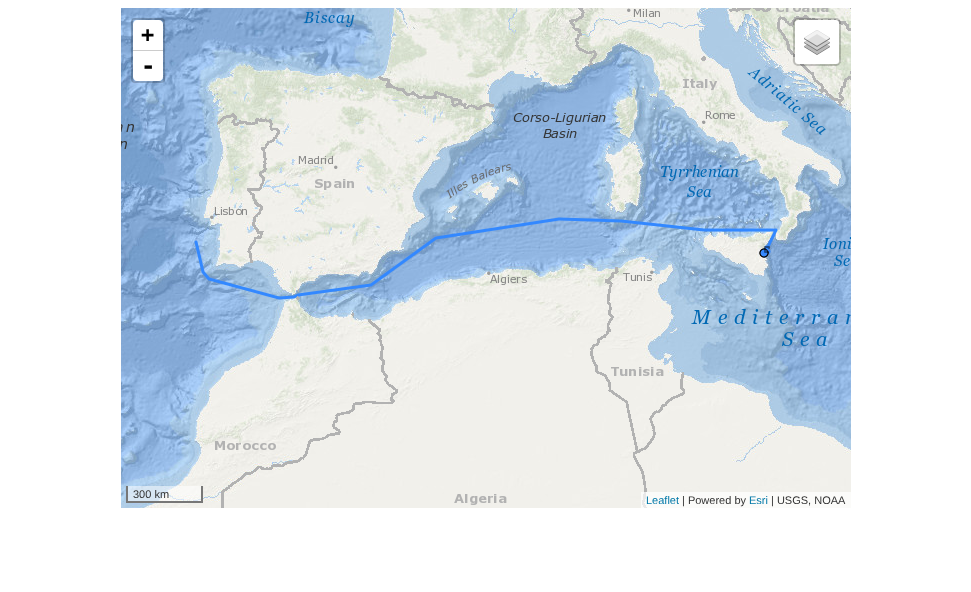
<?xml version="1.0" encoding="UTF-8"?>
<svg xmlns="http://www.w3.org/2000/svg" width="971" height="592">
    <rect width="100%" height="100%" fill="#FFFFFF"/>
    <image x="121" y="8" width="43" height="142" href="img_01.png"/>
    <image x="164" y="8" width="256" height="142" href="img_02.png"/>
    <image x="420" y="8" width="256" height="142" href="img_03.png"/>
    <image x="676" y="8" width="175" height="142" href="img_04.png"/>
    <image x="121" y="150" width="43" height="256" href="img_05.png"/>
    <image x="164" y="150" width="256" height="256" href="img_06.png"/>
    <image x="420" y="150" width="256" height="256" href="img_07.png"/>
    <image x="676" y="150" width="175" height="256" href="img_08.png"/>
    <image x="121" y="406" width="43" height="102" href="img_09.png"/>
    <image x="164" y="406" width="256" height="102" href="img_10.png"/>
    <image x="420" y="406" width="256" height="102" href="img_11.png"/>
    <image x="676" y="406" width="175" height="102" href="img_12.png"/>
    <image x="121" y="124" width="13" height="25" href="img_13.png"/>
    <image x="217" y="11" width="203" height="139" href="img_14.png"/>
    <image x="420" y="8" width="240" height="130" href="img_15.png"/>
    <image x="683" y="8" width="168" height="127" href="img_16.png"/>
    <image x="194" y="217" width="584" height="83" href="img_22.png"/>
    <image x="210" y="150" width="188" height="256" href="img_17.png"/>
    <image x="446" y="164" width="230" height="242" href="img_18.png"/>
    <image x="676" y="165" width="175" height="233" href="img_19.png"/>
    <image x="215" y="406" width="140" height="102" href="img_20.png"/>
    <image x="454" y="406" width="211" height="102" href="img_21.png"/>
    <rect x="132" y="19" width="32" height="63" rx="3" fill="none" stroke="#000000" stroke-opacity="0.2" stroke-width="2"/>
    <path d="M 137 20 H 159 C 161 20 163 22 163 24 V 51 H 133 V 24 C 133 22 135 20 137 20 Z" fill="#FFFFFF"/>
    <rect x="133" y="50" width="30" height="1" fill="#CCCCCC"/>
    <text x="141" y="42" font-family="DejaVu Sans Mono" font-size="22" font-weight="700" fill="#000000">+</text>
    <path d="M 133 51 H 163 V 77 C 163 79 161 81 159 81 H 137 C 135 81 133 79 133 77 Z" fill="#FFFFFF"/>
    <text x="141" y="74" font-family="DejaVu Sans Mono" font-size="24" font-weight="700" fill="#000000">-</text>
    <rect x="795" y="20" width="44" height="44" rx="3" fill="#FFFFFF"/>
    <rect x="794" y="19" width="46" height="46" rx="4" fill="none" stroke="#000000" stroke-opacity="0.2" stroke-width="2"/>
    <image x="804" y="30" width="26" height="25" href="img_23.png"/>
    <rect x="128" y="486" width="73" height="15" fill="#FFFFFF" fill-opacity="0.5"/>
    <rect x="201" y="486" width="2" height="17" fill="#777777"/>
    <rect x="126" y="501" width="77" height="2" fill="#777777"/>
    <rect x="126" y="486" width="2" height="17" fill="#777777"/>
    <text x="133" y="498" font-family="Liberation Sans" font-size="11" fill="#333333">300 km</text>
    <rect x="641" y="492" width="210" height="16" fill="#FFFFFF" fill-opacity="0.7"/>
    <text x="646" y="504" font-family="Liberation Sans" font-size="11" fill="#0078A8">Leaflet</text>
    <text x="682" y="504" font-family="Liberation Sans" font-size="11" fill="#333333">| Powered by</text>
    <text x="749" y="504" font-family="Liberation Sans" font-size="11" fill="#0078A8">Esri</text>
    <text x="771" y="504" font-family="Liberation Sans" font-size="11" fill="#333333">| USGS, NOAA</text>
</svg>
